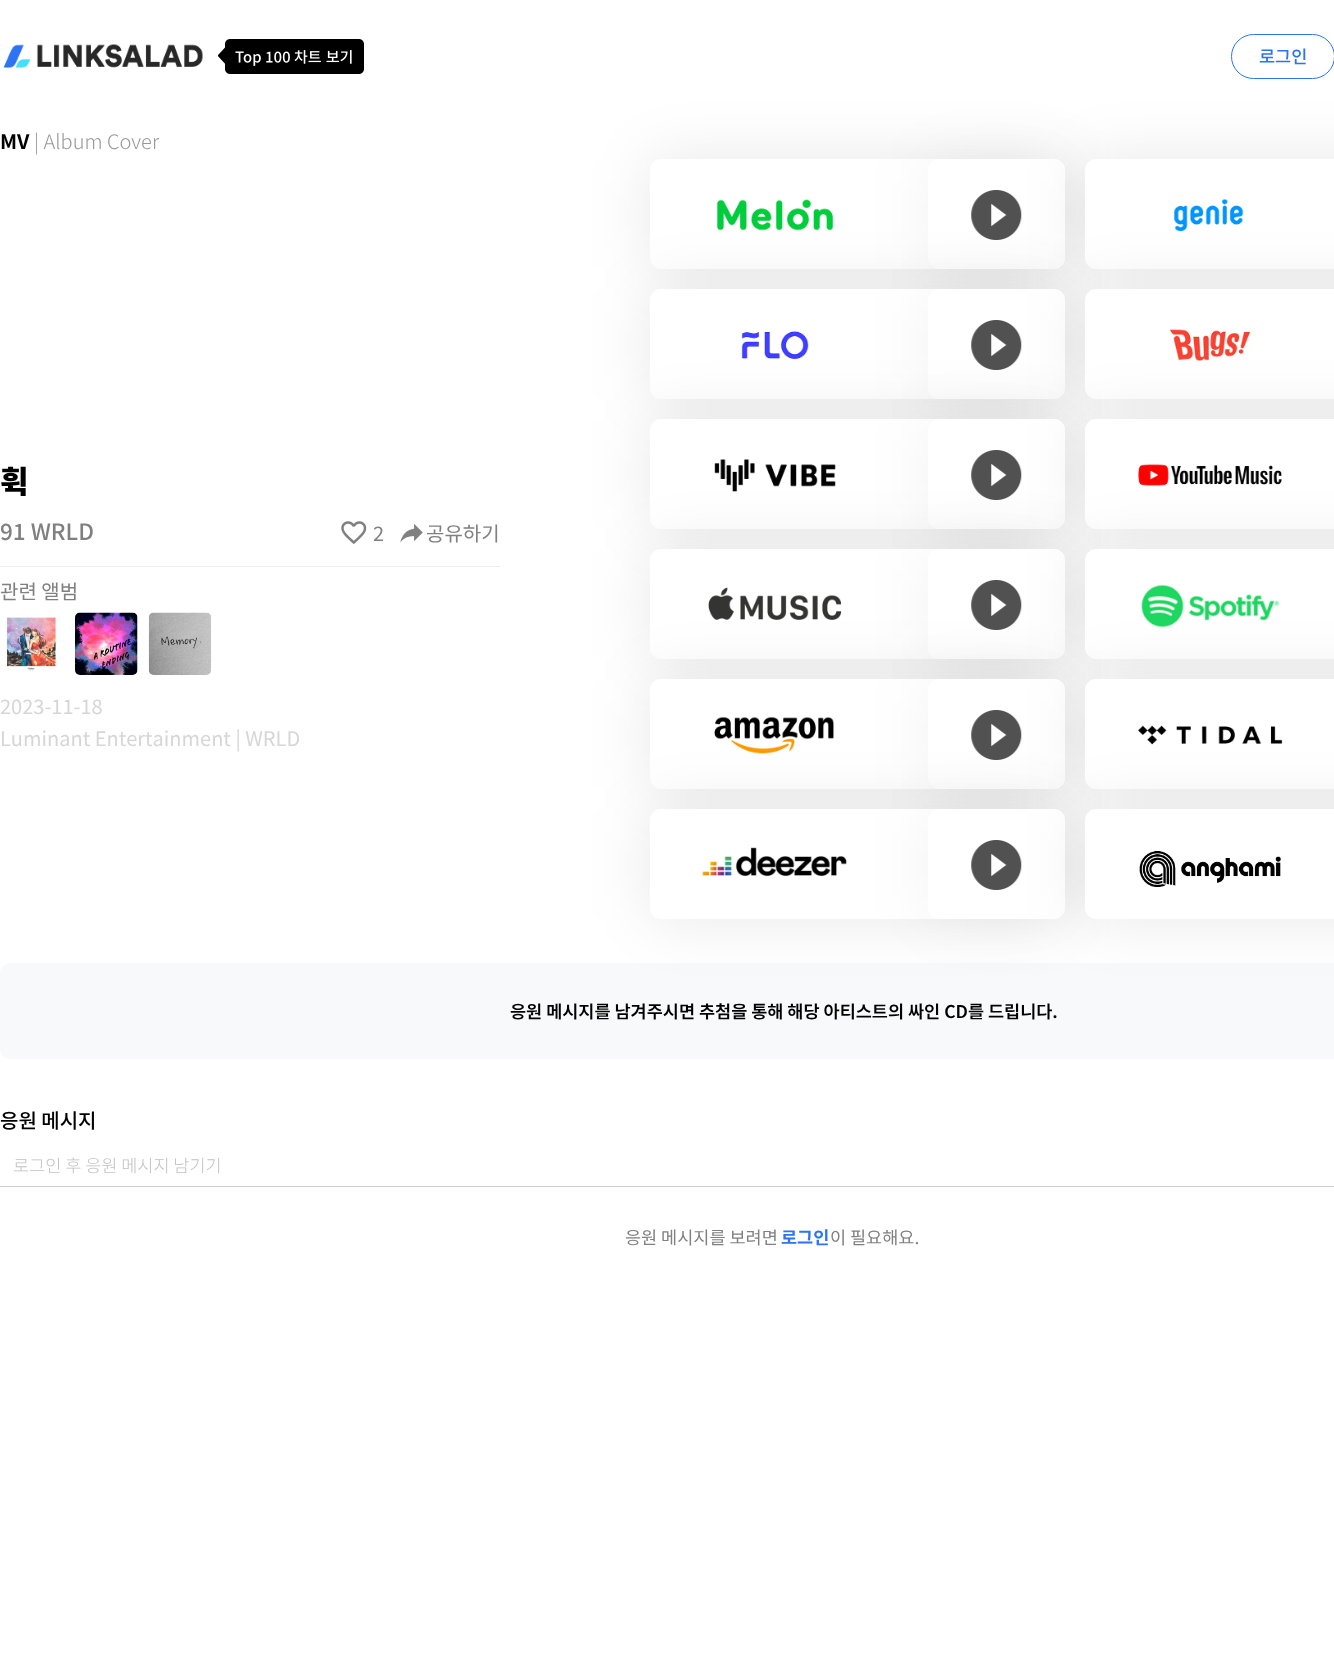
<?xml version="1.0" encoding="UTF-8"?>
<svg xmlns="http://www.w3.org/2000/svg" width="1334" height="1654">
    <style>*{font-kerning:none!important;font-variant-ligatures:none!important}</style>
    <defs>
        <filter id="blur1" x="-50%" y="-200%" width="200%" height="500%"><feGaussianBlur stdDeviation="31"/></filter>
    </defs>
    <rect width="100%" height="100%" fill="#FFFFFF"/>
    <image x="3" y="44" width="200" height="24" href="img_01.png"/>
    <image x="218" y="39" width="146" height="35" href="img_02.png"/>
    <rect x="1231.5" y="34.5" width="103" height="44" rx="22" fill="none" stroke="#2C74F4"/>
    <text x="1259" y="63" font-family="Noto Sans KR" font-size="17.5" font-weight="500" fill="#2C74F4">로그인</text>
    <text x="0" y="149" font-family="Noto Sans KR" font-size="20" font-weight="700" fill="#000000">MV</text>
    <text x="34" y="149" font-family="Noto Sans KR" font-size="20" font-weight="300" fill="#999999">| Album Cover</text>
    <text x="0" y="493" font-family="Noto Sans KR" font-size="31" font-weight="900" fill="#000000">휙</text>
    <text x="0" y="540" font-family="Noto Sans KR" font-size="22.5" font-weight="500" fill="#808080">91 WRLD</text>
    <rect x="0" y="566" width="500" height="1" fill="#EEEEEE"/>
    <image x="341" y="521" width="26" height="23" href="img_03.png"/>
    <text x="373" y="541" font-family="Noto Sans KR" font-size="20" fill="#808080">2</text>
    <image x="400" y="524" width="23" height="19" href="img_04.png"/>
    <text x="426" y="541" font-family="Noto Sans KR" font-size="20" fill="#808080">공유하기</text>
    <text x="0" y="599" font-family="Noto Sans KR" font-size="20" fill="#808080">관련 앨범</text>
    <image x="5" y="617" width="55" height="54" href="img_05.png"/>
    <image x="75" y="612" width="63" height="63" href="img_06.png"/>
    <image x="148" y="612" width="64" height="63" href="img_07.png"/>
    <text font-family="Noto Sans KR" font-size="20" fill="#D6D6D6">
        <tspan x="0" y="714">2023-11-18</tspan>
        <tspan x="0" y="746">Luminant Entertainment | WRLD</tspan>
    </text>
    <rect x="650" y="159" width="415" height="110" rx="11" fill="#000000" fill-opacity="0.09" filter="url(#blur1)"/>
    <rect x="650" y="159" width="415" height="110" rx="11" fill="#FFFFFF"/>
    <image x="717" y="199" width="116" height="32" href="img_08.png"/>
    <rect x="928" y="159" width="137" height="110" rx="11" fill="#000000" fill-opacity="0.05" filter="url(#blur1)"/>
    <rect x="928" y="159" width="137" height="110" rx="11" fill="#FFFFFF"/>
    <image x="971" y="190" width="51" height="50" href="img_09.png"/>
    <rect x="1085" y="159" width="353" height="110" rx="11" fill="#000000" fill-opacity="0.09" filter="url(#blur1)"/>
    <rect x="1085" y="159" width="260" height="110" rx="11" fill="#FFFFFF"/>
    <image x="1174" y="199" width="70" height="33" href="img_10.png"/>
    <rect x="650" y="289" width="415" height="110" rx="11" fill="#000000" fill-opacity="0.09" filter="url(#blur1)"/>
    <rect x="650" y="289" width="415" height="110" rx="11" fill="#FFFFFF"/>
    <image x="741" y="331" width="68" height="29" href="img_11.png"/>
    <rect x="928" y="289" width="137" height="110" rx="11" fill="#000000" fill-opacity="0.05" filter="url(#blur1)"/>
    <rect x="928" y="289" width="137" height="110" rx="11" fill="#FFFFFF"/>
    <image x="971" y="320" width="51" height="50" href="img_09.png"/>
    <rect x="1085" y="289" width="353" height="110" rx="11" fill="#000000" fill-opacity="0.09" filter="url(#blur1)"/>
    <rect x="1085" y="289" width="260" height="110" rx="11" fill="#FFFFFF"/>
    <image x="1169" y="329" width="82" height="32" href="img_12.png"/>
    <rect x="650" y="419" width="415" height="110" rx="11" fill="#000000" fill-opacity="0.09" filter="url(#blur1)"/>
    <rect x="650" y="419" width="415" height="110" rx="11" fill="#FFFFFF"/>
    <image x="714" y="459" width="122" height="33" href="img_13.png"/>
    <rect x="928" y="419" width="137" height="110" rx="11" fill="#000000" fill-opacity="0.05" filter="url(#blur1)"/>
    <rect x="928" y="419" width="137" height="110" rx="11" fill="#FFFFFF"/>
    <image x="971" y="450" width="51" height="50" href="img_09.png"/>
    <rect x="1085" y="419" width="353" height="110" rx="11" fill="#000000" fill-opacity="0.09" filter="url(#blur1)"/>
    <rect x="1085" y="419" width="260" height="110" rx="11" fill="#FFFFFF"/>
    <image x="1138" y="464" width="144" height="22" href="img_14.png"/>
    <rect x="650" y="549" width="415" height="110" rx="11" fill="#000000" fill-opacity="0.09" filter="url(#blur1)"/>
    <rect x="650" y="549" width="415" height="110" rx="11" fill="#FFFFFF"/>
    <image x="708" y="587" width="134" height="33" href="img_15.png"/>
    <rect x="928" y="549" width="137" height="110" rx="11" fill="#000000" fill-opacity="0.05" filter="url(#blur1)"/>
    <rect x="928" y="549" width="137" height="110" rx="11" fill="#FFFFFF"/>
    <image x="971" y="580" width="51" height="50" href="img_09.png"/>
    <rect x="1085" y="549" width="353" height="110" rx="11" fill="#000000" fill-opacity="0.09" filter="url(#blur1)"/>
    <rect x="1085" y="549" width="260" height="110" rx="11" fill="#FFFFFF"/>
    <image x="1141" y="584" width="139" height="44" href="img_16.png"/>
    <rect x="650" y="679" width="415" height="110" rx="11" fill="#000000" fill-opacity="0.09" filter="url(#blur1)"/>
    <rect x="650" y="679" width="415" height="110" rx="11" fill="#FFFFFF"/>
    <image x="714" y="716" width="121" height="38" href="img_17.png"/>
    <rect x="928" y="679" width="137" height="110" rx="11" fill="#000000" fill-opacity="0.05" filter="url(#blur1)"/>
    <rect x="928" y="679" width="137" height="110" rx="11" fill="#FFFFFF"/>
    <image x="971" y="710" width="51" height="50" href="img_09.png"/>
    <rect x="1085" y="679" width="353" height="110" rx="11" fill="#000000" fill-opacity="0.09" filter="url(#blur1)"/>
    <rect x="1085" y="679" width="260" height="110" rx="11" fill="#FFFFFF"/>
    <image x="1137" y="725" width="146" height="20" href="img_18.png"/>
    <rect x="0" y="963" width="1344" height="96" rx="10" fill="#F8F9FA"/>
    <rect x="650" y="809" width="415" height="110" rx="11" fill="#000000" fill-opacity="0.09" filter="url(#blur1)"/>
    <rect x="650" y="809" width="415" height="110" rx="11" fill="#FFFFFF"/>
    <image x="702" y="847" width="145" height="30" href="img_19.png"/>
    <rect x="928" y="809" width="137" height="110" rx="11" fill="#000000" fill-opacity="0.05" filter="url(#blur1)"/>
    <rect x="928" y="809" width="137" height="110" rx="11" fill="#FFFFFF"/>
    <image x="971" y="840" width="51" height="50" href="img_09.png"/>
    <rect x="1085" y="809" width="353" height="110" rx="11" fill="#000000" fill-opacity="0.09" filter="url(#blur1)"/>
    <rect x="1085" y="809" width="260" height="110" rx="11" fill="#FFFFFF"/>
    <image x="1139" y="851" width="142" height="36" href="img_20.png"/>
    <text x="510" y="1018" font-family="Noto Sans KR" font-size="17.5" font-weight="600" fill="#000000">응원 메시지를 남겨주시면 추첨을 통해 해당 아티스트의 싸인 CD를 드립니다.</text>
    <text x="0" y="1128" font-family="Noto Sans KR" font-size="20" font-weight="500" fill="#000000">응원 메시지</text>
    <rect x="0" y="1186" width="1334" height="1" fill="#CDCDCD"/>
    <text x="13" y="1172" font-family="Noto Sans KR" font-size="17.5" font-weight="300" fill="#C1C1C1">로그인 후 응원 메시지 남기기</text>
    <text x="625" y="1244" font-family="Noto Sans KR" font-size="17.5" fill="#808080">응원 메시지를 보려면</text>
    <text x="781" y="1244" font-family="Noto Sans KR" font-size="17.5" font-weight="700" fill="#2C74F4">로그인</text>
    <text x="830" y="1244" font-family="Noto Sans KR" font-size="17.5" fill="#808080">이 필요해요.</text>
</svg>
